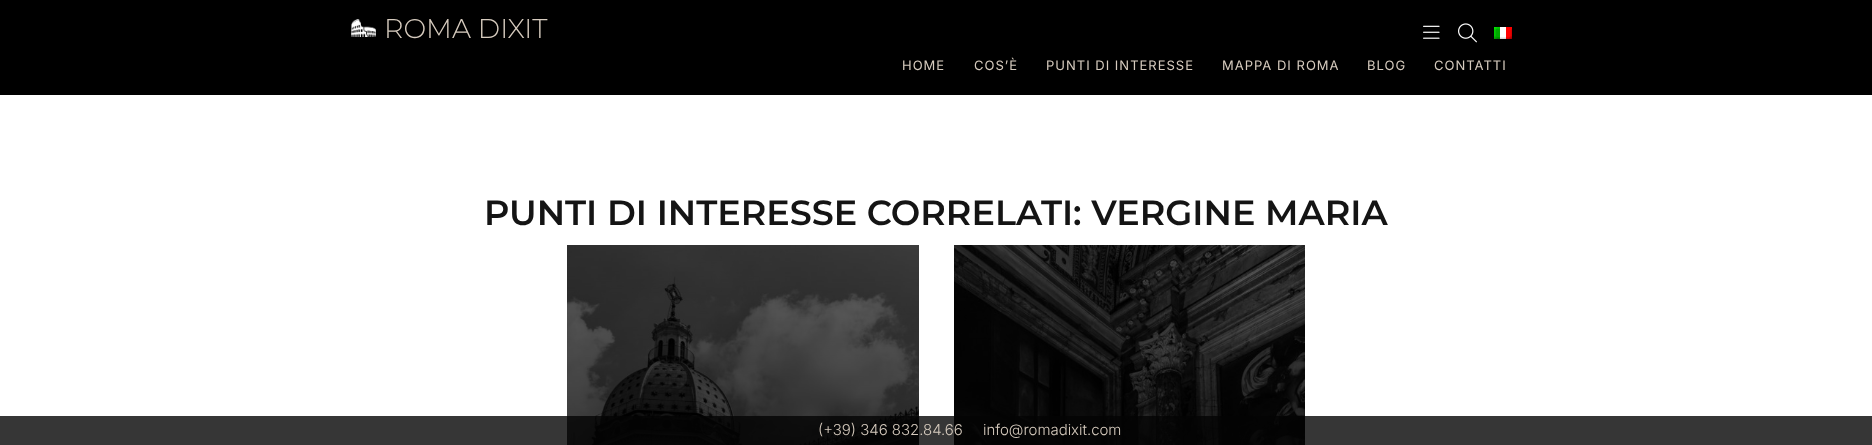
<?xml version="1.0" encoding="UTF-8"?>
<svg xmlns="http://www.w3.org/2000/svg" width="1872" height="445">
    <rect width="100%" height="100%" fill="#FFFFFF"/>
    <rect x="0" y="0" width="1872" height="95" fill="#000000"/>
    <image x="351" y="19" width="25" height="18" href="img_01.png"/>
    <text x="384" y="38" font-family="Montserrat" font-size="27" font-weight="300" fill="#D6CBBE">ROMA DIXIT</text>
    <image x="1423" y="25" width="17" height="14" href="img_02.png"/>
    <image x="1458" y="23" width="19" height="20" href="img_03.png"/>
    <image x="1494" y="27" width="18" height="12" href="img_04.png"/>
    <text x="902" y="70" font-family="Inter" font-size="13" letter-spacing="1" fill="#D6CBBE">HOME</text>
    <text x="974" y="70" font-family="Inter" font-size="13" letter-spacing="1" fill="#D6CBBE">COS’È</text>
    <text x="1046" y="70" font-family="Inter" font-size="13" letter-spacing="1" fill="#D6CBBE">PUNTI DI INTERESSE</text>
    <text x="1222" y="70" font-family="Inter" font-size="13" letter-spacing="1" fill="#D6CBBE">MAPPA DI ROMA</text>
    <text x="1367" y="70" font-family="Inter" font-size="13" letter-spacing="1" fill="#D6CBBE">BLOG</text>
    <text x="1434" y="70" font-family="Inter" font-size="13" letter-spacing="1" fill="#D6CBBE">CONTATTI</text>
    <text x="484" y="225" font-family="Montserrat" font-size="35" font-weight="600" fill="#141414">PUNTI DI INTERESSE CORRELATI: VERGINE MARIA</text>
    <image x="567" y="245" width="352" height="200" href="img_05.png"/>
    <image x="954" y="245" width="351" height="200" href="img_06.png"/>
    <rect x="0" y="416" width="1872" height="29" fill="#040404" fill-opacity="0.8"/>
    <text x="818" y="435" font-family="Inter" font-size="15" font-weight="300" fill="#D6CBBE">(+39) 346 832.84.66</text>
    <text x="983" y="435" font-family="Inter" font-size="15" font-weight="300" fill="#D6CBBE">info@romadixit.com</text>
</svg>
